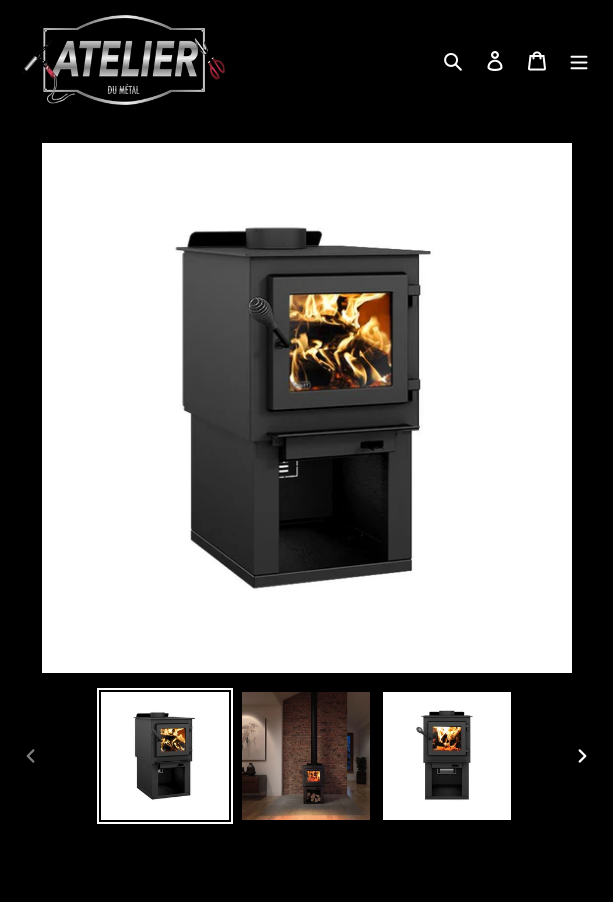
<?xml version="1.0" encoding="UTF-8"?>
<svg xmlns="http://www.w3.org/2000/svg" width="613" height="902">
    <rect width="100%" height="100%" fill="#000000"/>
    <image x="22" y="15" width="203" height="90" href="img_01.png"/>
    <image x="444" y="53" width="18" height="18" href="img_02.png"/>
    <image x="487" y="51" width="16" height="20" href="img_03.png"/>
    <image x="528" y="51" width="18" height="20" href="img_04.png"/>
    <image x="570" y="55" width="18" height="15" href="img_05.png"/>
    <image x="42" y="143" width="530" height="530" href="img_06.png"/>
    <image x="26" y="749" width="9" height="14" href="img_07.png"/>
    <rect x="98" y="689" width="134" height="134" fill="none" stroke="#FFFFFF" stroke-width="2"/>
    <image x="101" y="692" width="128" height="128" href="img_08.png"/>
    <image x="242" y="692" width="128" height="128" href="img_09.png"/>
    <image x="383" y="692" width="128" height="128" href="img_10.png"/>
    <image x="578" y="749" width="9" height="14" href="img_11.png"/>
</svg>
